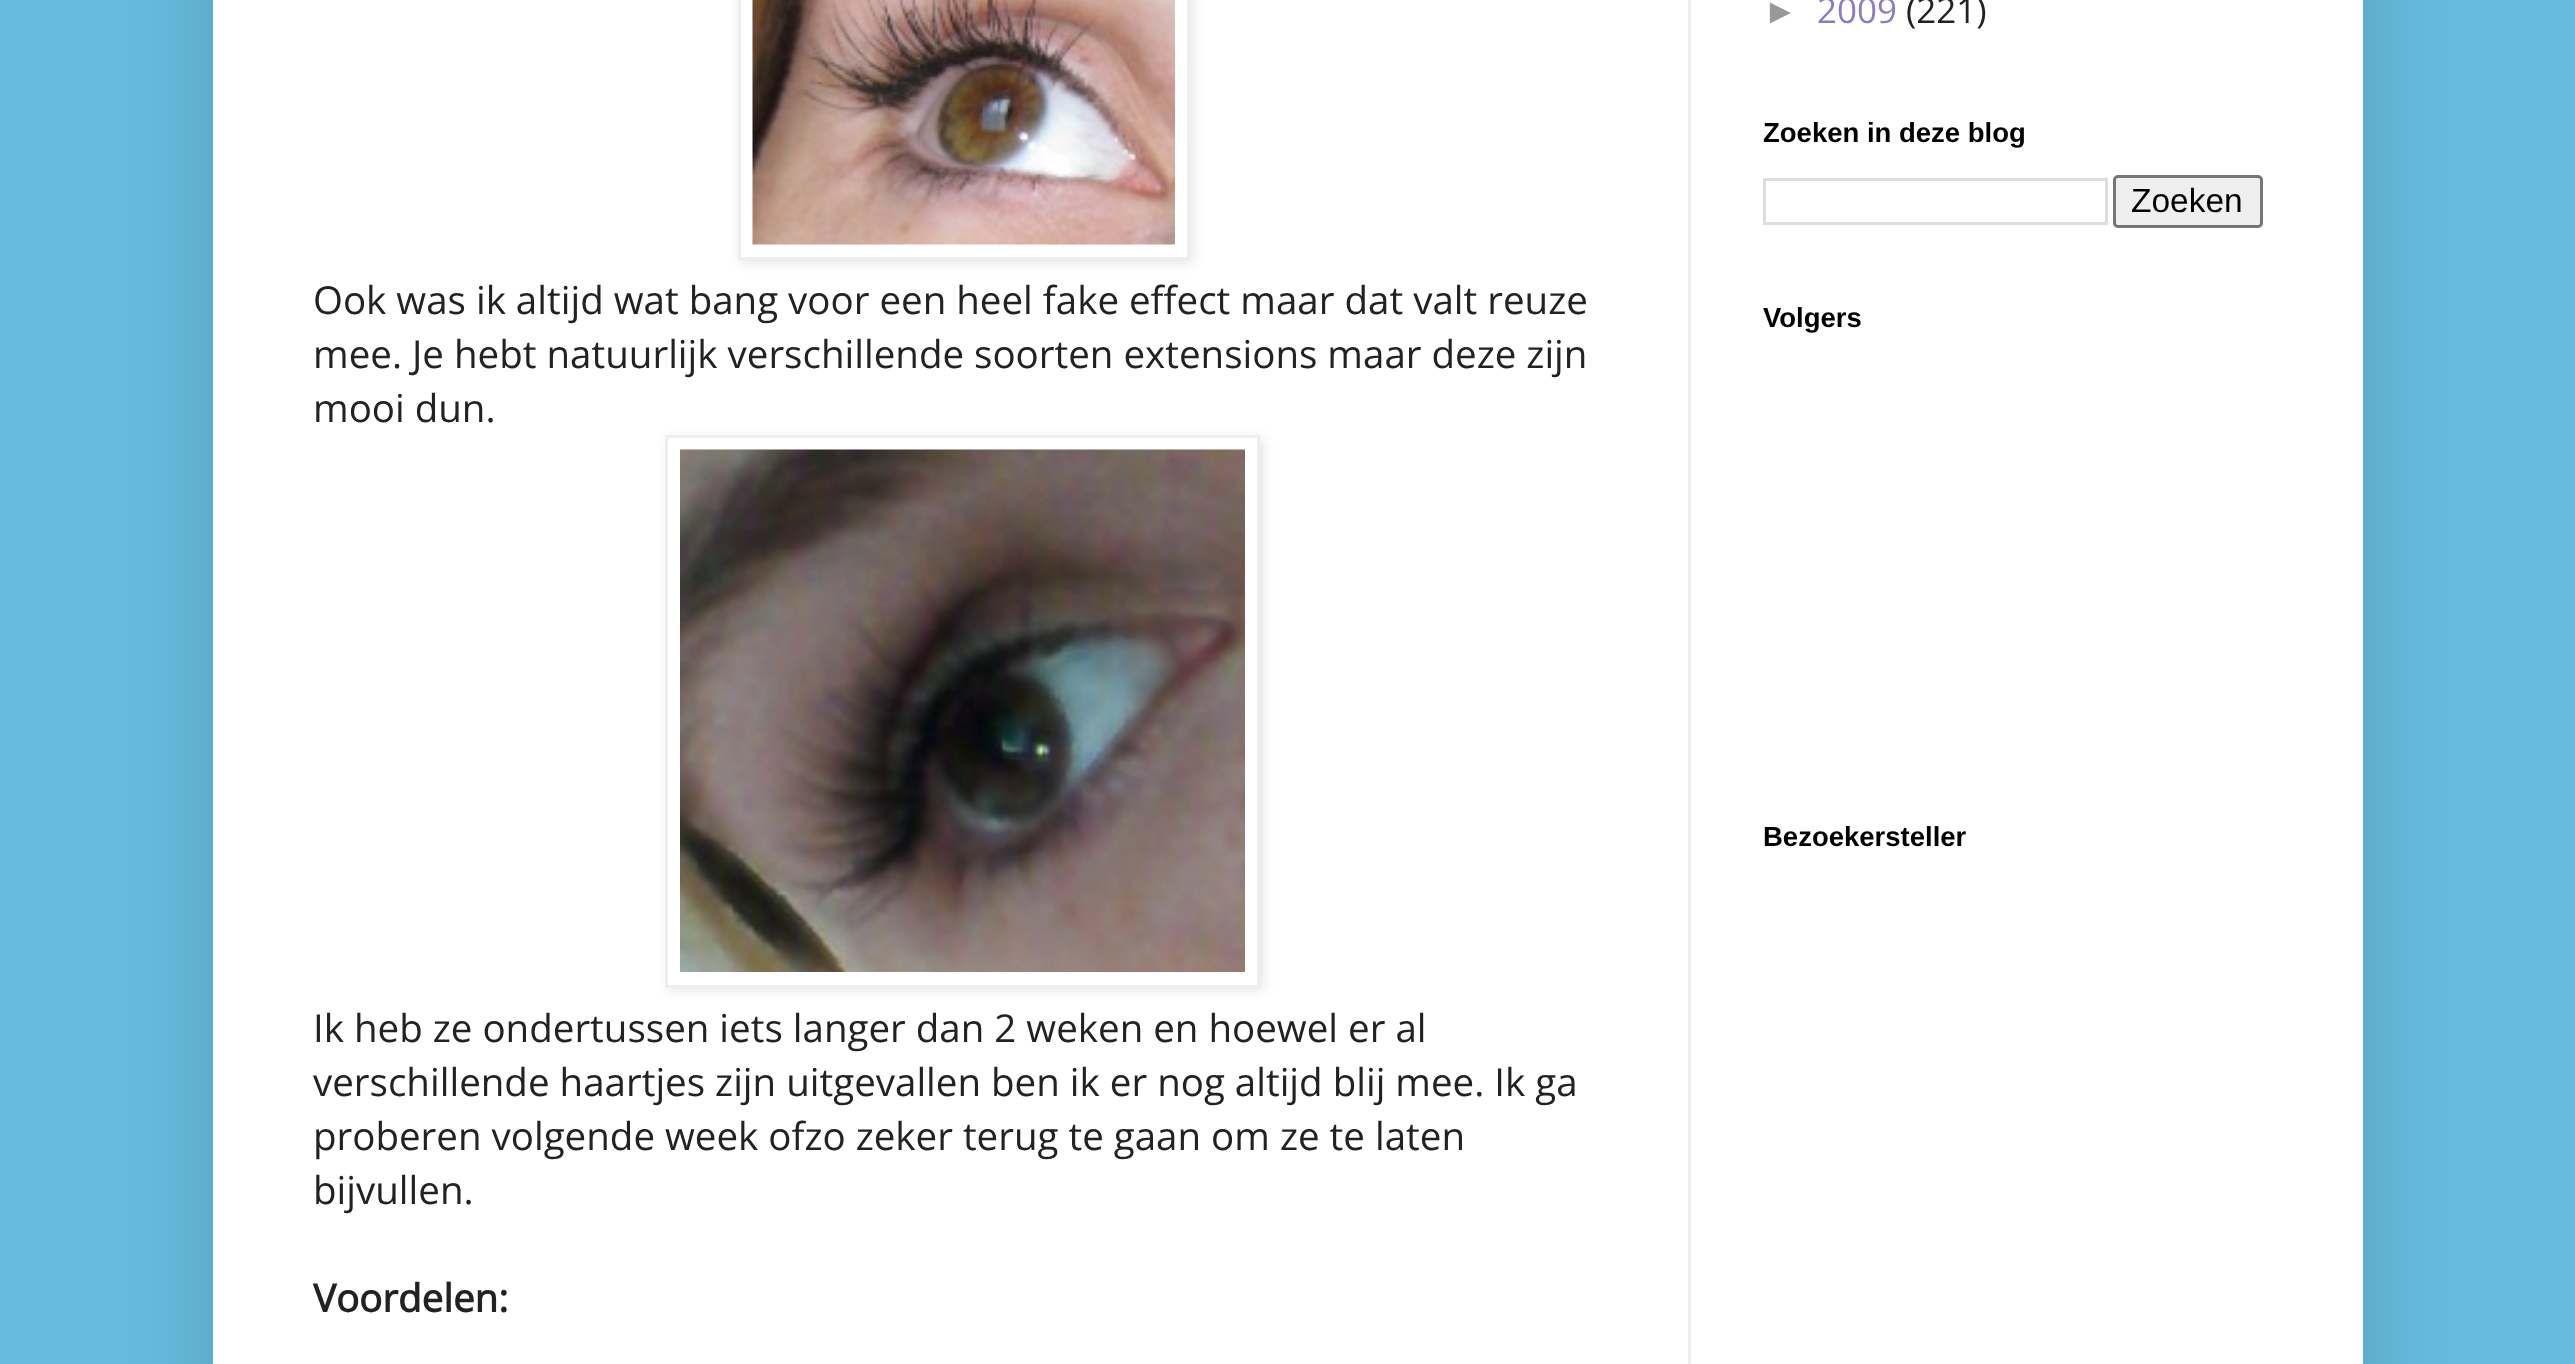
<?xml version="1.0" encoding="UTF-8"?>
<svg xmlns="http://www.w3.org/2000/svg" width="2575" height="1364">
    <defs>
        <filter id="blur1" x="-50%" y="-200%" width="200%" height="500%"><feGaussianBlur stdDeviation="50"/></filter>
        <clipPath id="clip1"><path d="M 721 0 H 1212 V 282 H 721 Z M 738 -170 H 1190 V 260 H 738 Z" clip-rule="evenodd"/></clipPath>
        <filter id="blur2" x="-50%" y="-200%" width="200%" height="500%"><feGaussianBlur stdDeviation="6"/></filter>
    </defs>
    <rect width="100%" height="100%" fill="#66BBDD"/>
    <rect x="213" y="-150" width="2150" height="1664" fill="#000000" fill-opacity="0.15" filter="url(#blur1)"/>
    <rect x="213" y="0" width="2150" height="1364" fill="#FFFFFF"/>
    <g clip-path="url(#clip1)">
        <rect x="740" y="-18" width="453" height="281" fill="#000000" fill-opacity="0.1" filter="url(#blur2)"/>
    </g>
    <rect x="739.5" y="-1.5" width="449" height="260" fill="none" stroke="#EEEEEE" stroke-width="3"/>
    <image x="752" y="0" width="423" height="245" href="img_01.png"/>
    <text font-family="Open Sans" font-size="38.5" fill="#222222">
        <tspan x="313" y="314">Ook was ik altijd wat bang voor een heel fake effect maar dat valt reuze</tspan>
        <tspan x="313" y="368">mee. Je hebt natuurlijk verschillende soorten extensions maar deze zijn</tspan>
        <tspan x="313" y="422">mooi dun.</tspan>
    </text>
    <rect x="668" y="438" width="595" height="552" fill="#000000" fill-opacity="0.1" filter="url(#blur2)"/>
    <rect x="666.5" y="436.5" width="592" height="550" fill="#FFFFFF" stroke="#EEEEEE" stroke-width="3"/>
    <image x="680" y="449" width="565" height="523" href="img_02.png"/>
    <text font-family="Open Sans" font-size="38.5" fill="#222222">
        <tspan x="313" y="1042">Ik heb ze ondertussen iets langer dan 2 weken en hoewel er al</tspan>
        <tspan x="313" y="1096">verschillende haartjes zijn uitgevallen ben ik er nog altijd blij mee. Ik ga</tspan>
        <tspan x="313" y="1150">proberen volgende week ofzo zeker terug te gaan om ze te laten</tspan>
        <tspan x="313" y="1204">bijvullen.</tspan>
    </text>
    <text x="313" y="1312" font-family="Open Sans" font-size="38.5" font-weight="700" fill="#222222">Voordelen:</text>
    <text x="1763" y="23" font-family="Liberation Sans" font-size="35" fill="#999999">►</text>
    <text x="1817" y="23" font-family="Open Sans" font-size="35" fill="#8E7CC3">2009</text>
    <text x="1906" y="23" font-family="Open Sans" font-size="35" fill="#222222">(221)</text>
    <text x="1763" y="142" font-family="Liberation Sans" font-size="27.5" font-weight="700" fill="#000000">Zoeken in deze blog</text>
    <rect x="1764.5" y="179.5" width="342" height="44" fill="none" stroke="#DDDDDD" stroke-width="3"/>
    <rect x="2114.5" y="176.5" width="147" height="50" rx="3.5" fill="#EFEFEF" stroke="#767676" stroke-width="3"/>
    <text x="2131" y="212" font-family="Liberation Sans" font-size="33.5" fill="#000000">Zoeken</text>
    <text x="1763" y="327" font-family="Liberation Sans" font-size="27.5" font-weight="700" fill="#000000">Volgers</text>
    <text x="1763" y="846" font-family="Liberation Sans" font-size="27.5" font-weight="700" fill="#000000">Bezoekersteller</text>
    <rect x="1688" y="0" width="3" height="1364" fill="#EEEEEE"/>
</svg>
